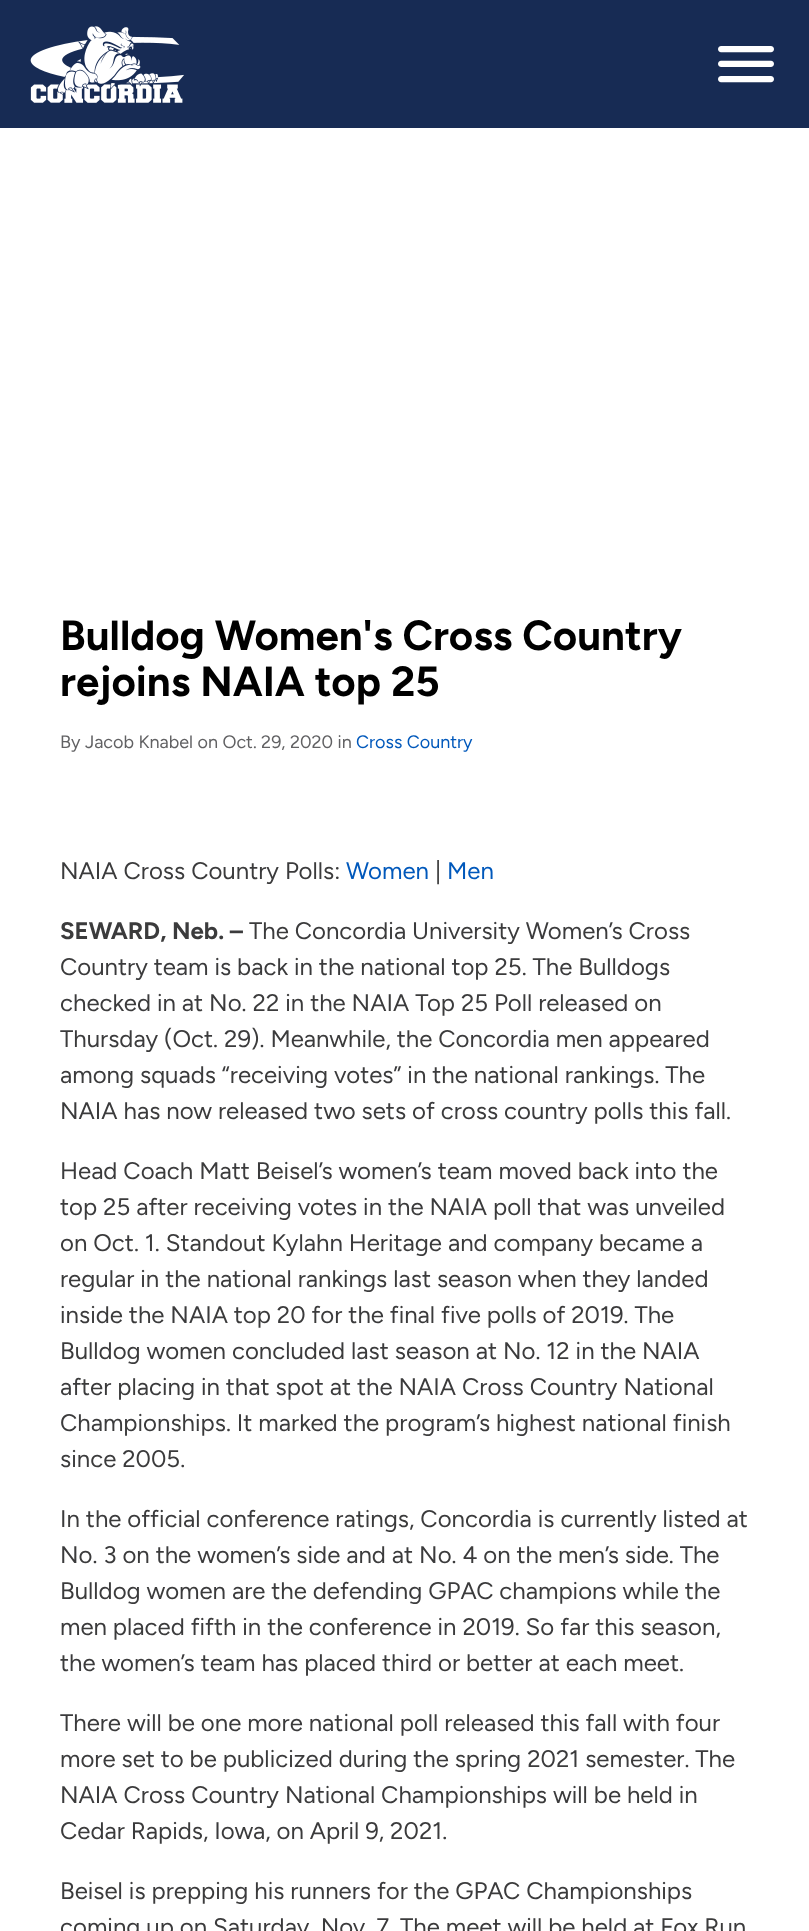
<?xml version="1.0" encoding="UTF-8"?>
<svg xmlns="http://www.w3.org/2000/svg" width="809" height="1931">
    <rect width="100%" height="100%" fill="#FFFFFF"/>
    <rect x="0" y="0" width="809" height="128" fill="#172B54"/>
    <image x="30" y="26" width="154" height="77" href="img_01.png"/>
    <image x="718" y="46" width="56" height="37" href="img_02.png"/>
    <text font-family="Figtree" font-size="42" font-weight="700" fill="#000000">
        <tspan x="60" y="650">Bulldog Women's Cross Country</tspan>
        <tspan x="60" y="696">rejoins NAIA top 25</tspan>
    </text>
    <text x="60" y="748" font-family="Figtree" font-size="18" fill="#616163">By Jacob Knabel on Oct. 29, 2020 in</text>
    <text x="356" y="748" font-family="Figtree" font-size="18" fill="#0058BB">Cross Country</text>
    <text x="60" y="879" font-family="Figtree" font-size="24" fill="#3B3B3C">NAIA Cross Country Polls:</text>
    <text x="346" y="879" font-family="Figtree" font-size="24" fill="#0058BB">Women</text>
    <text x="435" y="879" font-family="Figtree" font-size="24" fill="#3B3B3C">|</text>
    <text x="447" y="879" font-family="Figtree" font-size="24" fill="#0058BB">Men</text>
    <text x="60" y="939" font-family="Figtree" font-size="24" font-weight="700" fill="#3B3B3C">SEWARD, Neb. –</text>
    <text x="249" y="939" font-family="Figtree" font-size="24" fill="#3B3B3C">The Concordia University Women’s Cross</text>
    <text font-family="Figtree" font-size="24" fill="#3B3B3C">
        <tspan x="60" y="975">Country team is back in the national top 25. The Bulldogs</tspan>
        <tspan x="60" y="1011">checked in at No. 22 in the NAIA Top 25 Poll released on</tspan>
        <tspan x="60" y="1047">Thursday (Oct. 29). Meanwhile, the Concordia men appeared</tspan>
        <tspan x="60" y="1083">among squads “receiving votes” in the national rankings. The</tspan>
        <tspan x="60" y="1119">NAIA has now released two sets of cross country polls this fall.</tspan>
    </text>
    <text font-family="Figtree" font-size="24" fill="#3B3B3C">
        <tspan x="60" y="1179">Head Coach Matt Beisel’s women’s team moved back into the</tspan>
        <tspan x="60" y="1215">top 25 after receiving votes in the NAIA poll that was unveiled</tspan>
        <tspan x="60" y="1251">on Oct. 1. Standout Kylahn Heritage and company became a</tspan>
        <tspan x="60" y="1287">regular in the national rankings last season when they landed</tspan>
        <tspan x="60" y="1323">inside the NAIA top 20 for the final five polls of 2019. The</tspan>
        <tspan x="60" y="1359">Bulldog women concluded last season at No. 12 in the NAIA</tspan>
        <tspan x="60" y="1395">after placing in that spot at the NAIA Cross Country National</tspan>
        <tspan x="60" y="1431">Championships. It marked the program’s highest national finish</tspan>
        <tspan x="60" y="1467">since 2005.</tspan>
    </text>
    <text font-family="Figtree" font-size="24" fill="#3B3B3C">
        <tspan x="60" y="1527">In the official conference ratings, Concordia is currently listed at</tspan>
        <tspan x="60" y="1563">No. 3 on the women’s side and at No. 4 on the men’s side. The</tspan>
        <tspan x="60" y="1599">Bulldog women are the defending GPAC champions while the</tspan>
        <tspan x="60" y="1635">men placed fifth in the conference in 2019. So far this season,</tspan>
        <tspan x="60" y="1671">the women’s team has placed third or better at each meet.</tspan>
    </text>
    <text font-family="Figtree" font-size="24" fill="#3B3B3C">
        <tspan x="60" y="1731">There will be one more national poll released this fall with four</tspan>
        <tspan x="60" y="1767">more set to be publicized during the spring 2021 semester. The</tspan>
        <tspan x="60" y="1803">NAIA Cross Country National Championships will be held in</tspan>
        <tspan x="60" y="1839">Cedar Rapids, Iowa, on April 9, 2021.</tspan>
    </text>
    <text font-family="Figtree" font-size="24" fill="#3B3B3C">
        <tspan x="60" y="1899">Beisel is prepping his runners for the GPAC Championships</tspan>
        <tspan x="60" y="1935">coming up on Saturday, Nov. 7. The meet will be held at Fox Run</tspan>
    </text>
</svg>
